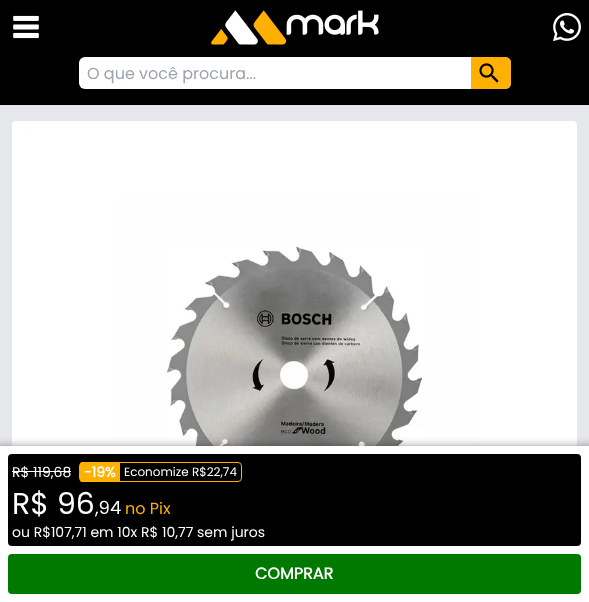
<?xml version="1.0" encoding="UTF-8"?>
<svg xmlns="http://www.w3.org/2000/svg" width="589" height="602">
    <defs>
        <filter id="blur1" x="-50%" y="-200%" width="200%" height="500%"><feGaussianBlur stdDeviation="5"/></filter>
    </defs>
    <rect width="100%" height="100%" fill="#000000"/>
    <image x="13" y="15" width="26" height="24" href="img_01.png"/>
    <image x="211" y="10" width="168" height="35" href="img_02.png"/>
    <image x="553" y="13" width="28" height="28" href="img_03.png"/>
    <rect x="79" y="57" width="432" height="32" rx="6" fill="#FFFFFF"/>
    <text x="87" y="79" font-family="Poppins" font-size="16" fill="#9CA3AF">O que você procura...</text>
    <path d="M 471 57 H 505 C 508.5 57 511 59.5 511 63 V 83 C 511 86.5 508.5 89 505 89 H 471 Z" fill="#FFB000"/>
    <image x="479" y="63" width="20" height="20" href="img_04.png"/>
    <rect x="0" y="105" width="589" height="341" fill="#E5E7EB"/>
    <rect x="12" y="121" width="565" height="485" rx="4" fill="#FFFFFF"/>
    <image x="25" y="134" width="538" height="312" href="img_05.png"/>
    <rect x="-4" y="447" width="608" height="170" fill="#000000" fill-opacity="0.5" filter="url(#blur1)"/>
    <rect x="0" y="446" width="589" height="156" fill="#FFFFFF"/>
    <rect x="8" y="454" width="573" height="92" rx="4" fill="#000000"/>
    <text x="12" y="477" font-family="Poppins" font-size="14" fill="#FFFFFF">R$ 119,68</text>
    <rect x="12" y="471" width="59" height="1" fill="#FFFFFF"/>
    <rect x="79.5" y="462.5" width="162" height="19" rx="3.5" fill="none" stroke="#FFB000"/>
    <path d="M 82 462 H 120 V 482 H 82 C 81 482 80 481 80 480 V 464 C 80 463 81 462 82 462 Z" fill="#FFB000"/>
    <text x="84" y="477" font-family="Poppins" font-size="14" font-weight="700" fill="#FFFFFF">-19%</text>
    <text x="124" y="476" font-family="Poppins" font-size="12" fill="#FFFFFF">Economize R$22,74</text>
    <text x="12" y="514" font-family="Poppins" font-size="30" fill="#FFFFFF">R$ 96</text>
    <text x="95" y="514" font-family="Poppins" font-size="18" fill="#FFFFFF">,94</text>
    <text x="125" y="514" font-family="Poppins" font-size="16" fill="#FFB000">no Pix</text>
    <text x="12" y="537" font-family="Poppins" font-size="14" fill="#FFFFFF">ou R$107,71 em 10x R$ 10,77 sem juros</text>
    <rect x="8" y="554" width="573" height="40" rx="4" fill="#007900"/>
    <text x="255" y="579" font-family="Poppins" font-size="16" font-weight="700" fill="#FFFFFF">COMPRAR</text>
</svg>
